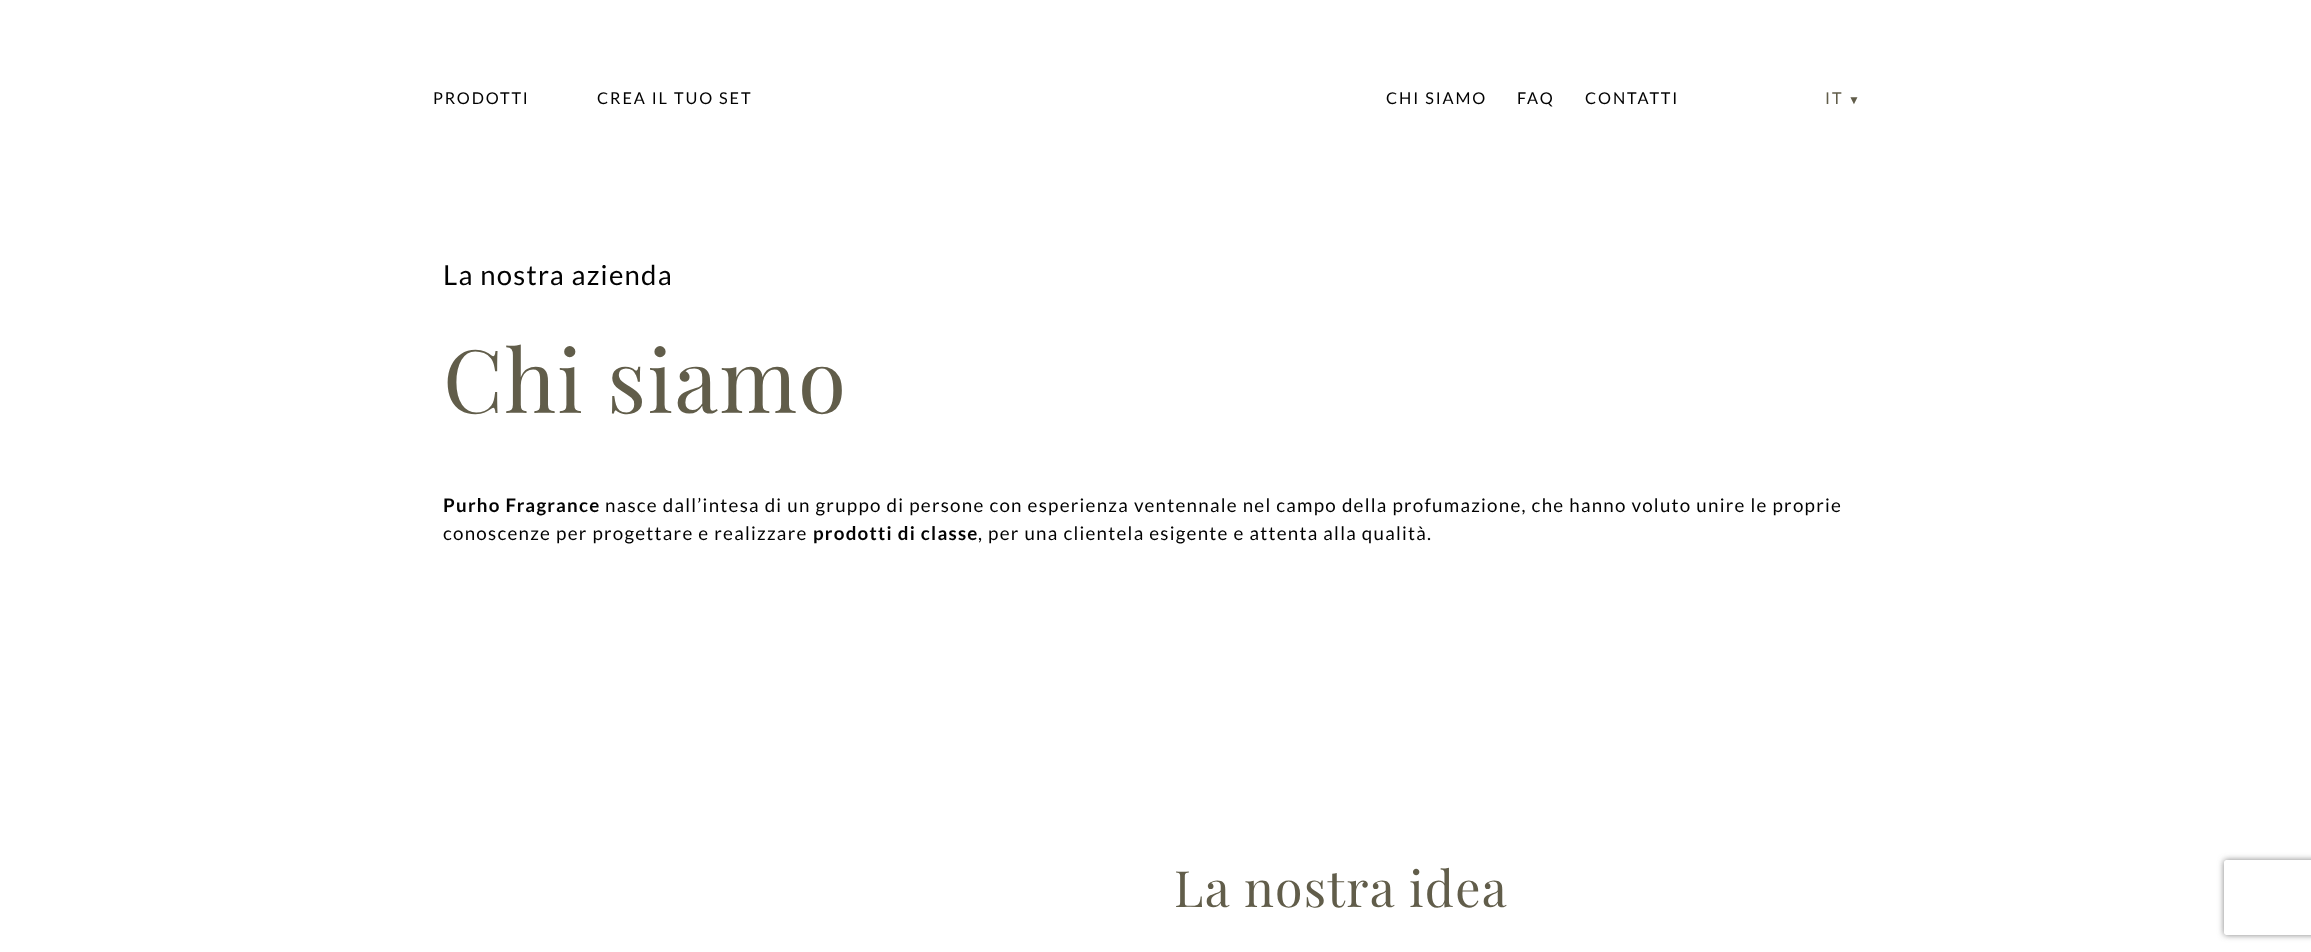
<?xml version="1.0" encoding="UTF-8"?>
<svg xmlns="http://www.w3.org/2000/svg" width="2311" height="952">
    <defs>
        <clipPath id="clip1"><path d="M 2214 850 H 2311 V 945 H 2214 Z M 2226.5 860 H 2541.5 C 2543 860 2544 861 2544 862.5 V 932.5 C 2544 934 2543 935 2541.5 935 H 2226.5 C 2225 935 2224 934 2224 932.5 V 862.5 C 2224 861 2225 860 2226.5 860 Z" clip-rule="evenodd"/></clipPath>
        <filter id="blur1" x="-50%" y="-200%" width="200%" height="500%"><feGaussianBlur stdDeviation="3"/></filter>
    </defs>
    <rect width="100%" height="100%" fill="#FFFFFF"/>
    <text x="433" y="104" font-family="Lato" font-size="16.25" letter-spacing="1.9" fill="#020202">PRODOTTI</text>
    <text x="597" y="104" font-family="Lato" font-size="16.25" letter-spacing="1.9" fill="#020202">CREA IL TUO SET</text>
    <text x="1386" y="104" font-family="Lato" font-size="16.25" letter-spacing="1.9" fill="#020202">CHI SIAMO</text>
    <text x="1517" y="104" font-family="Lato" font-size="16.25" letter-spacing="1.9" fill="#020202">FAQ</text>
    <text x="1585" y="104" font-family="Lato" font-size="16.25" letter-spacing="1.9" fill="#020202">CONTATTI</text>
    <text x="1825" y="104" font-family="Lato" font-size="16.25" letter-spacing="1.9" fill="#615D4A">IT</text>
    <text x="1848" y="104" font-family="Liberation Serif" font-size="12" letter-spacing="1.9" fill="#615D4A">▼</text>
    <text x="443" y="285" font-family="Lato" font-size="27.5" letter-spacing="1.25" fill="#020202">La nostra azienda</text>
    <text x="443" y="413" font-family="Playfair Display" font-size="87.5" letter-spacing="1.25" fill="#615D4A">Chi siamo</text>
    <text x="443" y="512" font-family="Lato" font-size="18.75" font-weight="700" letter-spacing="1.25" fill="#020202">Purho Fragrance</text>
    <text x="605" y="512" font-family="Lato" font-size="18.75" letter-spacing="1.25" fill="#020202">nasce dall’intesa di un gruppo di persone con esperienza ventennale nel campo della profumazione, che hanno voluto unire le proprie</text>
    <text x="443" y="540" font-family="Lato" font-size="18.75" letter-spacing="1.25" fill="#020202">conoscenze per progettare e realizzare</text>
    <text x="813" y="540" font-family="Lato" font-size="18.75" font-weight="700" letter-spacing="1.25" fill="#020202">prodotti di classe</text>
    <text x="978" y="540" font-family="Lato" font-size="18.75" letter-spacing="1.25" fill="#020202">, per una clientela esigente e attenta alla qualità.</text>
    <text x="1174" y="907" font-family="Playfair Display" font-size="50" letter-spacing="1.25" fill="#615D4A">La nostra idea</text>
    <g clip-path="url(#clip1)">
        <rect x="2224" y="860" width="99" height="75" rx="2.5" fill="#808080" filter="url(#blur1)"/>
    </g>
</svg>
